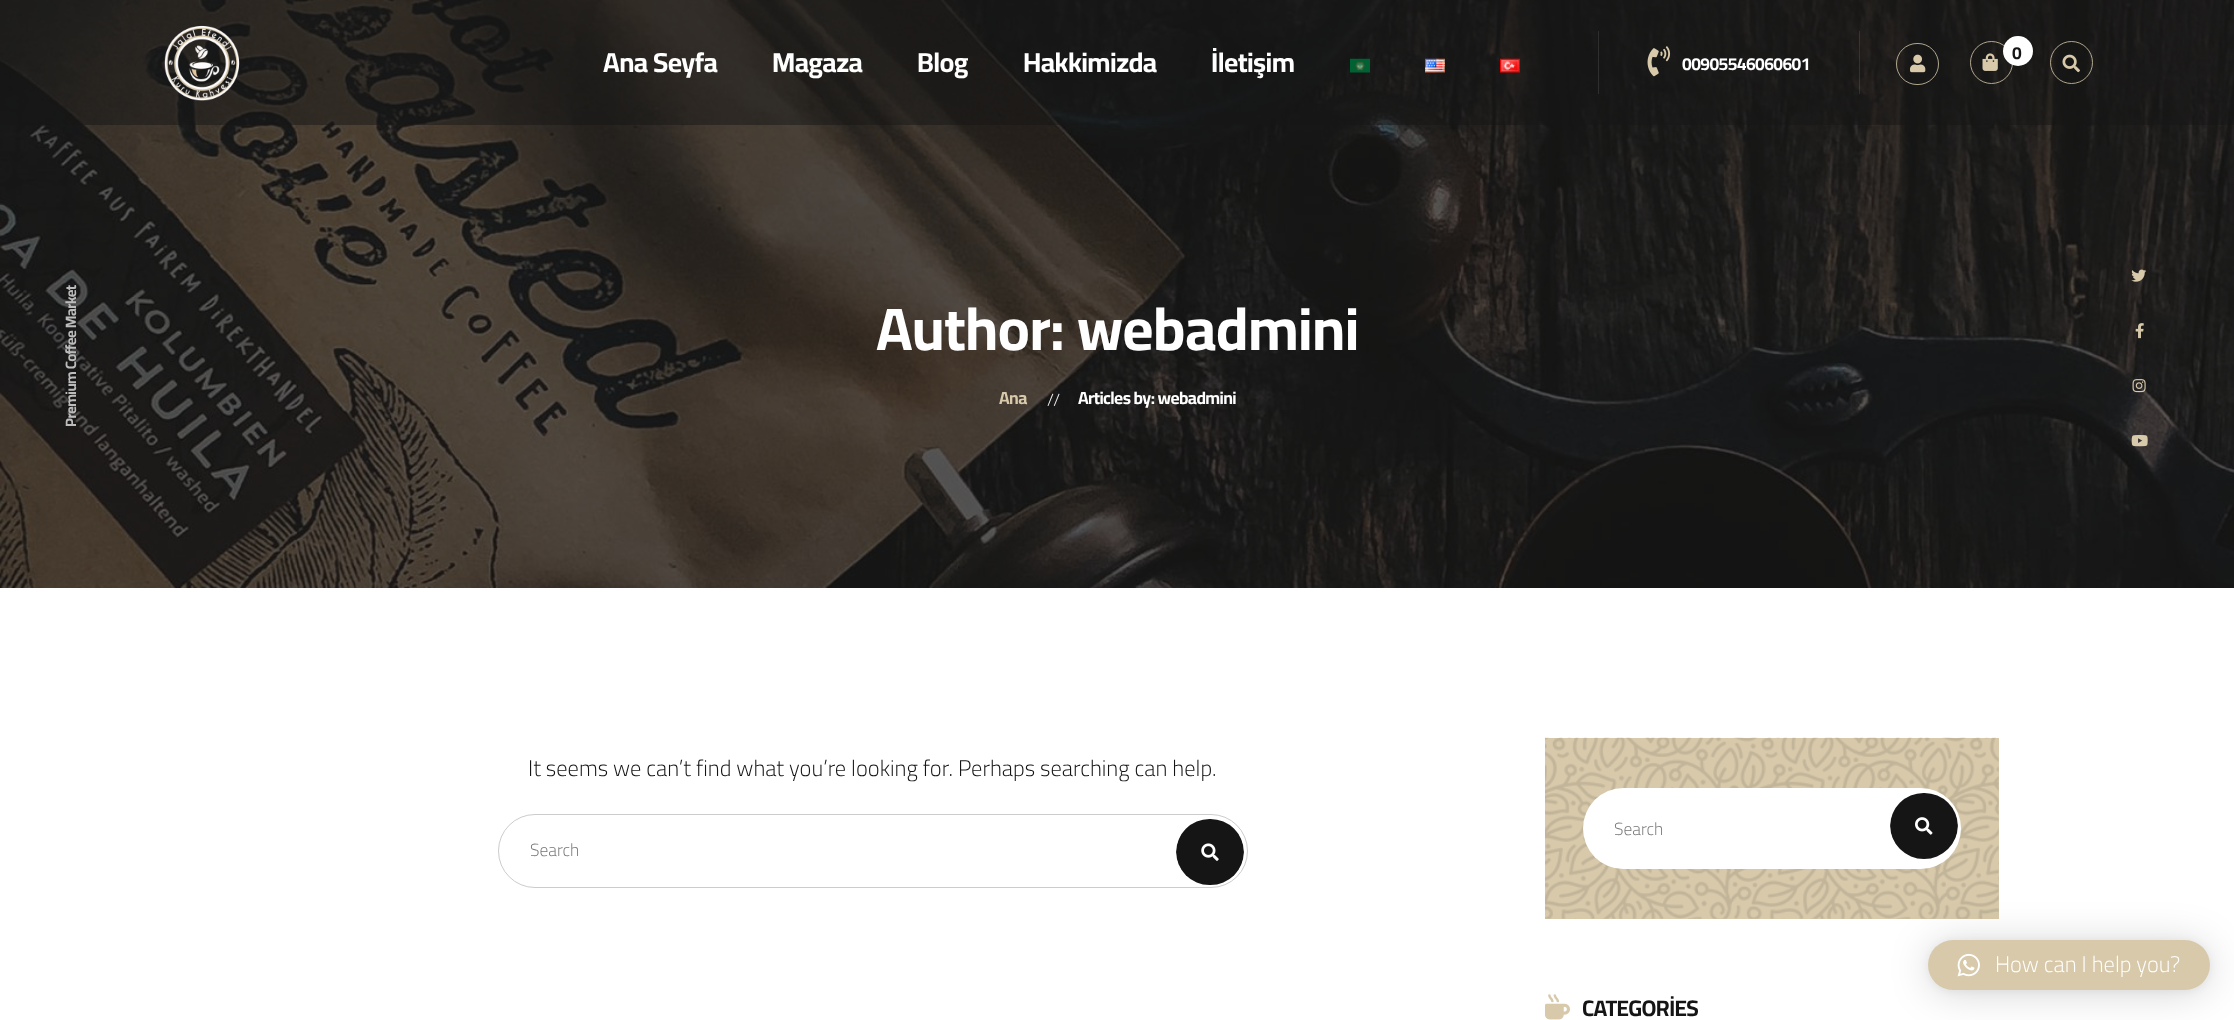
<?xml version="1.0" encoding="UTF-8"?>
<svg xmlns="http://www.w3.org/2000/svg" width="2234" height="1020">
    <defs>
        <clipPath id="clip1"><rect x="1176" y="818" width="68" height="67" rx="33.5"/></clipPath>
        <clipPath id="clip2"><rect x="1890" y="791" width="68" height="68" rx="34"/></clipPath>
        <filter id="blur1" x="-50%" y="-200%" width="200%" height="500%"><feGaussianBlur stdDeviation="20"/></filter>
        <filter id="blur2" x="-50%" y="-200%" width="200%" height="500%"><feGaussianBlur stdDeviation="4"/></filter>
    </defs>
    <rect width="100%" height="100%" fill="#FFFFFF"/>
    <image x="0" y="0" width="2234" height="588" href="img_09.png"/>
    <rect x="0" y="0" width="2234" height="125" fill="#151515" fill-opacity="0.5"/>
    <image x="164" y="25" width="76" height="76" href="img_01.png"/>
    <text x="603" y="72" font-family="Cairo" font-size="27.5" font-weight="700" letter-spacing="-0.6" fill="#FFFFFF">Ana Seyfa</text>
    <text x="772" y="72" font-family="Cairo" font-size="27.5" font-weight="700" letter-spacing="-0.6" fill="#FFFFFF">Magaza</text>
    <text x="917" y="72" font-family="Cairo" font-size="27.5" font-weight="700" letter-spacing="-0.6" fill="#FFFFFF">Blog</text>
    <text x="1023" y="72" font-family="Cairo" font-size="27.5" font-weight="700" letter-spacing="-0.6" fill="#FFFFFF">Hakkimizda</text>
    <text x="1211" y="72" font-family="Cairo" font-size="27.5" font-weight="700" letter-spacing="-0.6" fill="#FFFFFF">İletişim</text>
    <image x="1350" y="58" width="20" height="15" href="img_02.png"/>
    <image x="1425" y="58" width="20" height="15" href="img_03.png"/>
    <image x="1500" y="58" width="20" height="15" href="img_04.png"/>
    <image x="1910" y="54" width="16" height="19" href="img_05.png"/>
    <rect x="1896.5" y="43.5" width="42" height="41" rx="20.5" fill="none" stroke="#D7C9AA" stroke-opacity="0.8"/>
    <circle cx="1991.5" cy="62.5" r="21" fill="none" stroke="#D7C9AA" stroke-opacity="0.8"/>
    <image x="1982" y="53" width="16" height="18" href="img_06.png"/>
    <circle cx="2018" cy="51" r="15" fill="#FFFFFF"/>
    <text x="2012" y="59" font-family="Cairo" font-size="17.5" font-weight="700" letter-spacing="-0.6" fill="#151515">0</text>
    <circle cx="2071.5" cy="62.5" r="21" fill="none" stroke="#D7C9AA" stroke-opacity="0.8"/>
    <image x="2062" y="54" width="18" height="19" href="img_07.png"/>
    <rect x="1598" y="31" width="1" height="63" fill="#2E2E2E"/>
    <image x="1647" y="46" width="24" height="31" href="img_08.png"/>
    <text x="1682" y="70" font-family="Cairo" font-size="17.5" font-weight="700" letter-spacing="-0.6" fill="#FFFFFF">00905546060601</text>
    <rect x="1859" y="31" width="1" height="63" fill="#FFFFFF" fill-opacity="0.1"/>
    <text x="76" y="427" transform="rotate(-90 76 427)" font-family="Cairo" font-size="15" font-weight="700" letter-spacing="-0.6" fill="#BCBCBC">Premium Coffee Market</text>
    <text x="876" y="350" font-family="Cairo" font-size="60" font-weight="700" letter-spacing="-0.6" fill="#FFFFFF">Author: webadmini</text>
    <text x="999" y="404" font-family="Cairo" font-size="17.5" font-weight="700" letter-spacing="-0.6" fill="#D7C9AA">Ana</text>
    <text x="1047" y="406" font-family="Cairo" font-size="17.5" font-weight="300" letter-spacing="-0.6" fill="#FFFFFF">//</text>
    <text x="1078" y="404" font-family="Cairo" font-size="17.5" font-weight="700" letter-spacing="-0.6" fill="#FFFFFF">Articles by: webadmini</text>
    <image x="2131" y="269" width="16" height="13" href="img_10.png"/>
    <image x="2135" y="323" width="9" height="16" href="img_11.png"/>
    <image x="2132" y="379" width="14" height="14" href="img_12.png"/>
    <image x="2131" y="435" width="17" height="12" href="img_13.png"/>
    <text x="528" y="776" font-family="Cairo" font-size="22.5" font-weight="300" fill="#151515">It seems we can’t find what you’re looking for. Perhaps searching can help.</text>
    <rect x="498.5" y="814.5" width="749" height="73" rx="36.5" fill="none" stroke="#CCCCCC"/>
    <text x="530" y="856" font-family="Cairo" font-size="17.5" font-weight="300" fill="#757575">Search</text>
    <g clip-path="url(#clip1)">
        <rect x="1176" y="819" width="68" height="67" rx="33.5" fill="#151515"/>
    </g>
    <image x="1201" y="843" width="18" height="18" href="img_14.png"/>
    <rect x="1545" y="738" width="454" height="181" fill="#D7C9AA"/>
    <image x="1545" y="737" width="454" height="182" href="img_15.png"/>
    <rect x="1583" y="788" width="378" height="81" rx="40.5" fill="#FFFFFF"/>
    <text x="1614" y="835" font-family="Cairo" font-size="17.5" font-weight="300" fill="#757575">Search</text>
    <g clip-path="url(#clip2)">
        <rect x="1890" y="793" width="68" height="67" rx="33.5" fill="#151515"/>
    </g>
    <image x="1915" y="817" width="18" height="18" href="img_16.png"/>
    <image x="1545" y="994" width="25" height="26" href="img_17.png"/>
    <text x="1582" y="1016" font-family="Cairo" font-size="22.5" font-weight="700" letter-spacing="-0.6" fill="#151515">CATEGORİES</text>
    <rect x="1928" y="943" width="282" height="50" rx="25" fill="#000000" fill-opacity="0.16" filter="url(#blur1)"/>
    <rect x="1928" y="941" width="282" height="50" rx="25" fill="#000000" fill-opacity="0.06" filter="url(#blur2)"/>
    <rect x="1928" y="940" width="282" height="50" rx="25" fill="#D7C9AA"/>
    <image x="1957" y="953" width="23" height="24" href="img_18.png"/>
    <text x="1995" y="972" font-family="Cairo" font-size="22.5" font-weight="300" fill="#FFFFFF">How can I help you?</text>
</svg>
